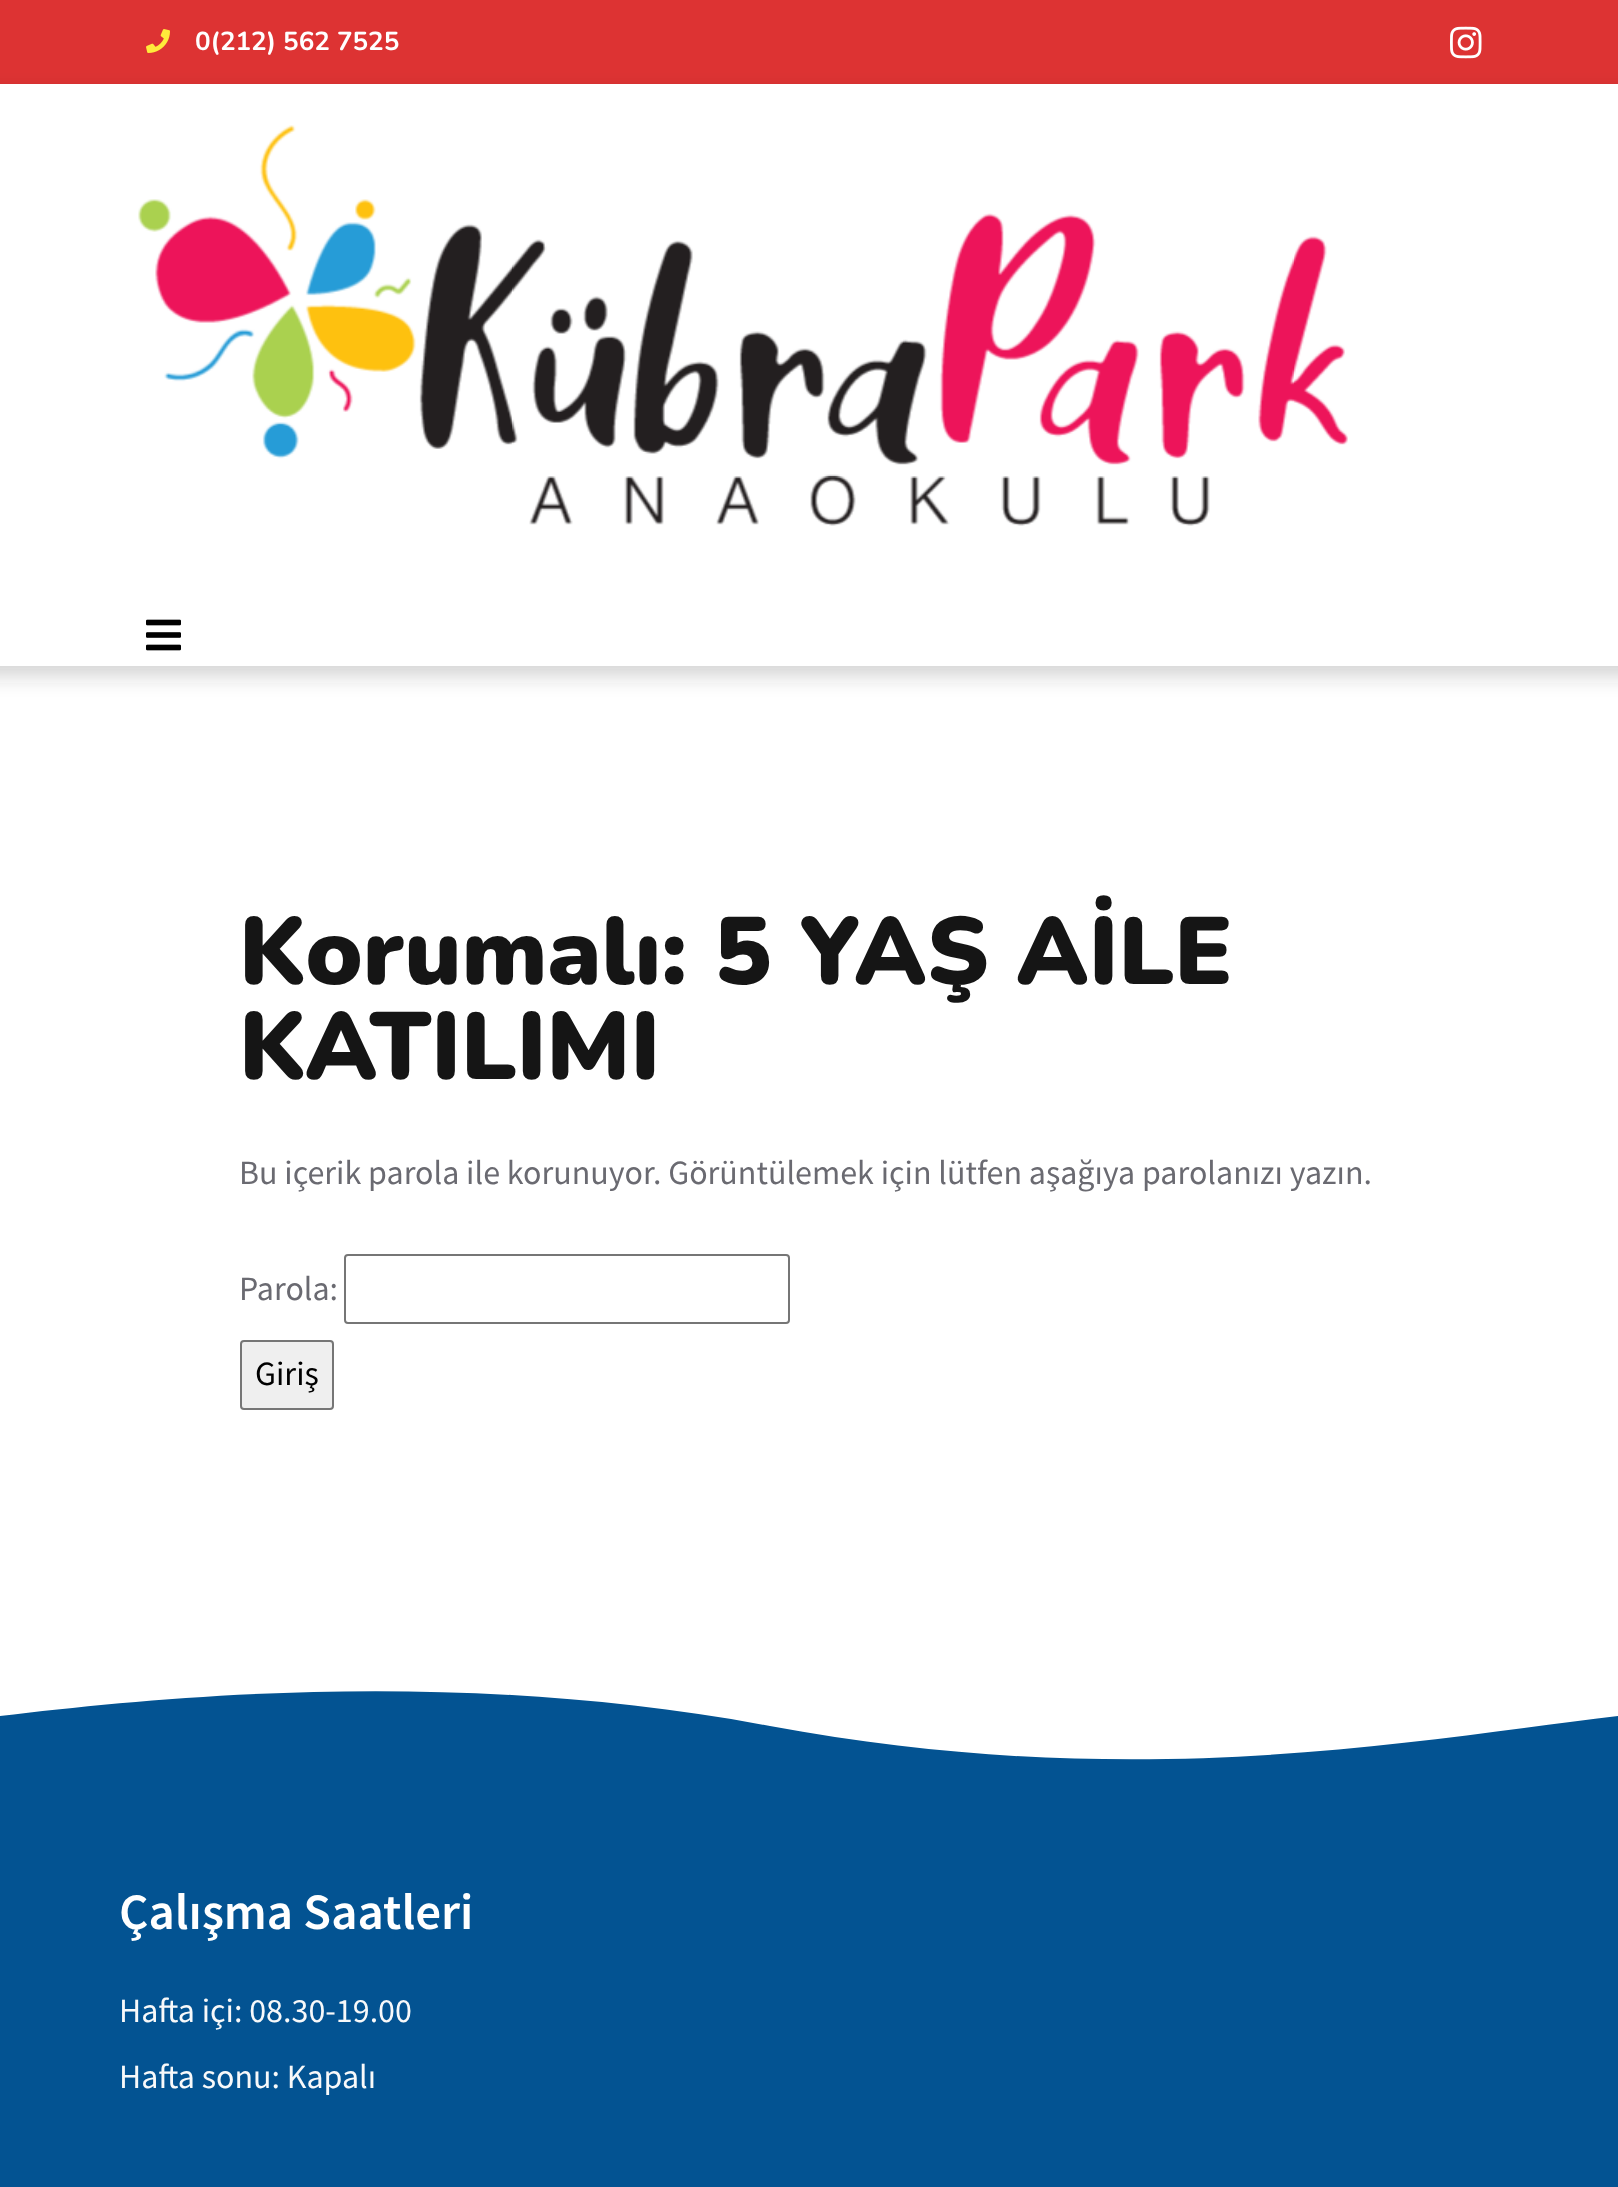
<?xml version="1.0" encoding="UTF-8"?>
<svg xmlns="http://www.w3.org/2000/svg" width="1618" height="2187">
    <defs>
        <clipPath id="clip1"><path d="M 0 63 H 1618 V 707 H 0 Z M -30 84 H 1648 V 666 H -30 Z" clip-rule="evenodd"/></clipPath>
        <filter id="blur1" x="-50%" y="-200%" width="200%" height="500%"><feGaussianBlur stdDeviation="10"/></filter>
        <clipPath id="clip2"><rect x="0" y="1682" width="1618" height="140"/></clipPath>
    </defs>
    <rect width="100%" height="100%" fill="#FFFFFF"/>
    <rect x="0" y="0" width="1618" height="84" fill="#DD3333"/>
    <image x="146" y="29" width="24" height="24" href="img_01.png"/>
    <text x="195" y="50" font-family="Nunito" font-size="26" font-weight="700" fill="#FFFFFF">0(212) 562 7525</text>
    <image x="1450" y="26" width="32" height="33" href="img_02.png"/>
    <g clip-path="url(#clip1)">
        <rect x="-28" y="94" width="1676" height="582" fill="#313131" fill-opacity="0.21" filter="url(#blur1)"/>
    </g>
    <image x="138" y="125" width="1210" height="401" href="img_03.png"/>
    <image x="146" y="619" width="35" height="32" href="img_04.png"/>
    <text font-family="Nunito" font-size="95.25" font-weight="900" fill="#151515">
        <tspan x="239" y="984">Korumalı: 5 YAŞ AİLE</tspan>
        <tspan x="239" y="1079">KATILIMI</tspan>
    </text>
    <text x="239" y="1184" font-family="Source Sans Pro" font-size="34" fill="#6A6A71">Bu içerik parola ile korunuyor. Görüntülemek için lütfen aşağıya parolanızı yazın.</text>
    <text x="239" y="1300" font-family="Source Sans Pro" font-size="34" fill="#6A6A71">Parola:</text>
    <rect x="345" y="1255" width="444" height="68" rx="3" fill="none" stroke="#767676" stroke-width="2"/>
    <rect x="241" y="1341" width="92" height="68" rx="3" fill="#EFEFEF" stroke="#767676" stroke-width="2"/>
    <text x="255" y="1385" font-family="Source Sans Pro" font-size="34" fill="#000000">Giriş</text>
    <g clip-path="url(#clip2)">
        <path d="M 770 1726 C 470 1670 191 1693 0 1716 V 1824 H 1618 V 1716 C 1408 1741 1135 1794 770 1726 Z" fill="#035392"/>
    </g>
    <rect x="0" y="1822" width="1618" height="365" fill="#035392"/>
    <text x="119" y="1929" font-family="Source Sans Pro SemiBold" font-size="51" font-weight="600" fill="#FFFFFF">Çalışma Saatleri</text>
    <text font-family="Source Sans Pro" font-size="34" fill="#F8F9FA">
        <tspan x="119" y="2022">Hafta içi: 08.30-19.00</tspan>
        <tspan x="119" y="2088">Hafta sonu: Kapalı</tspan>
    </text>
</svg>
